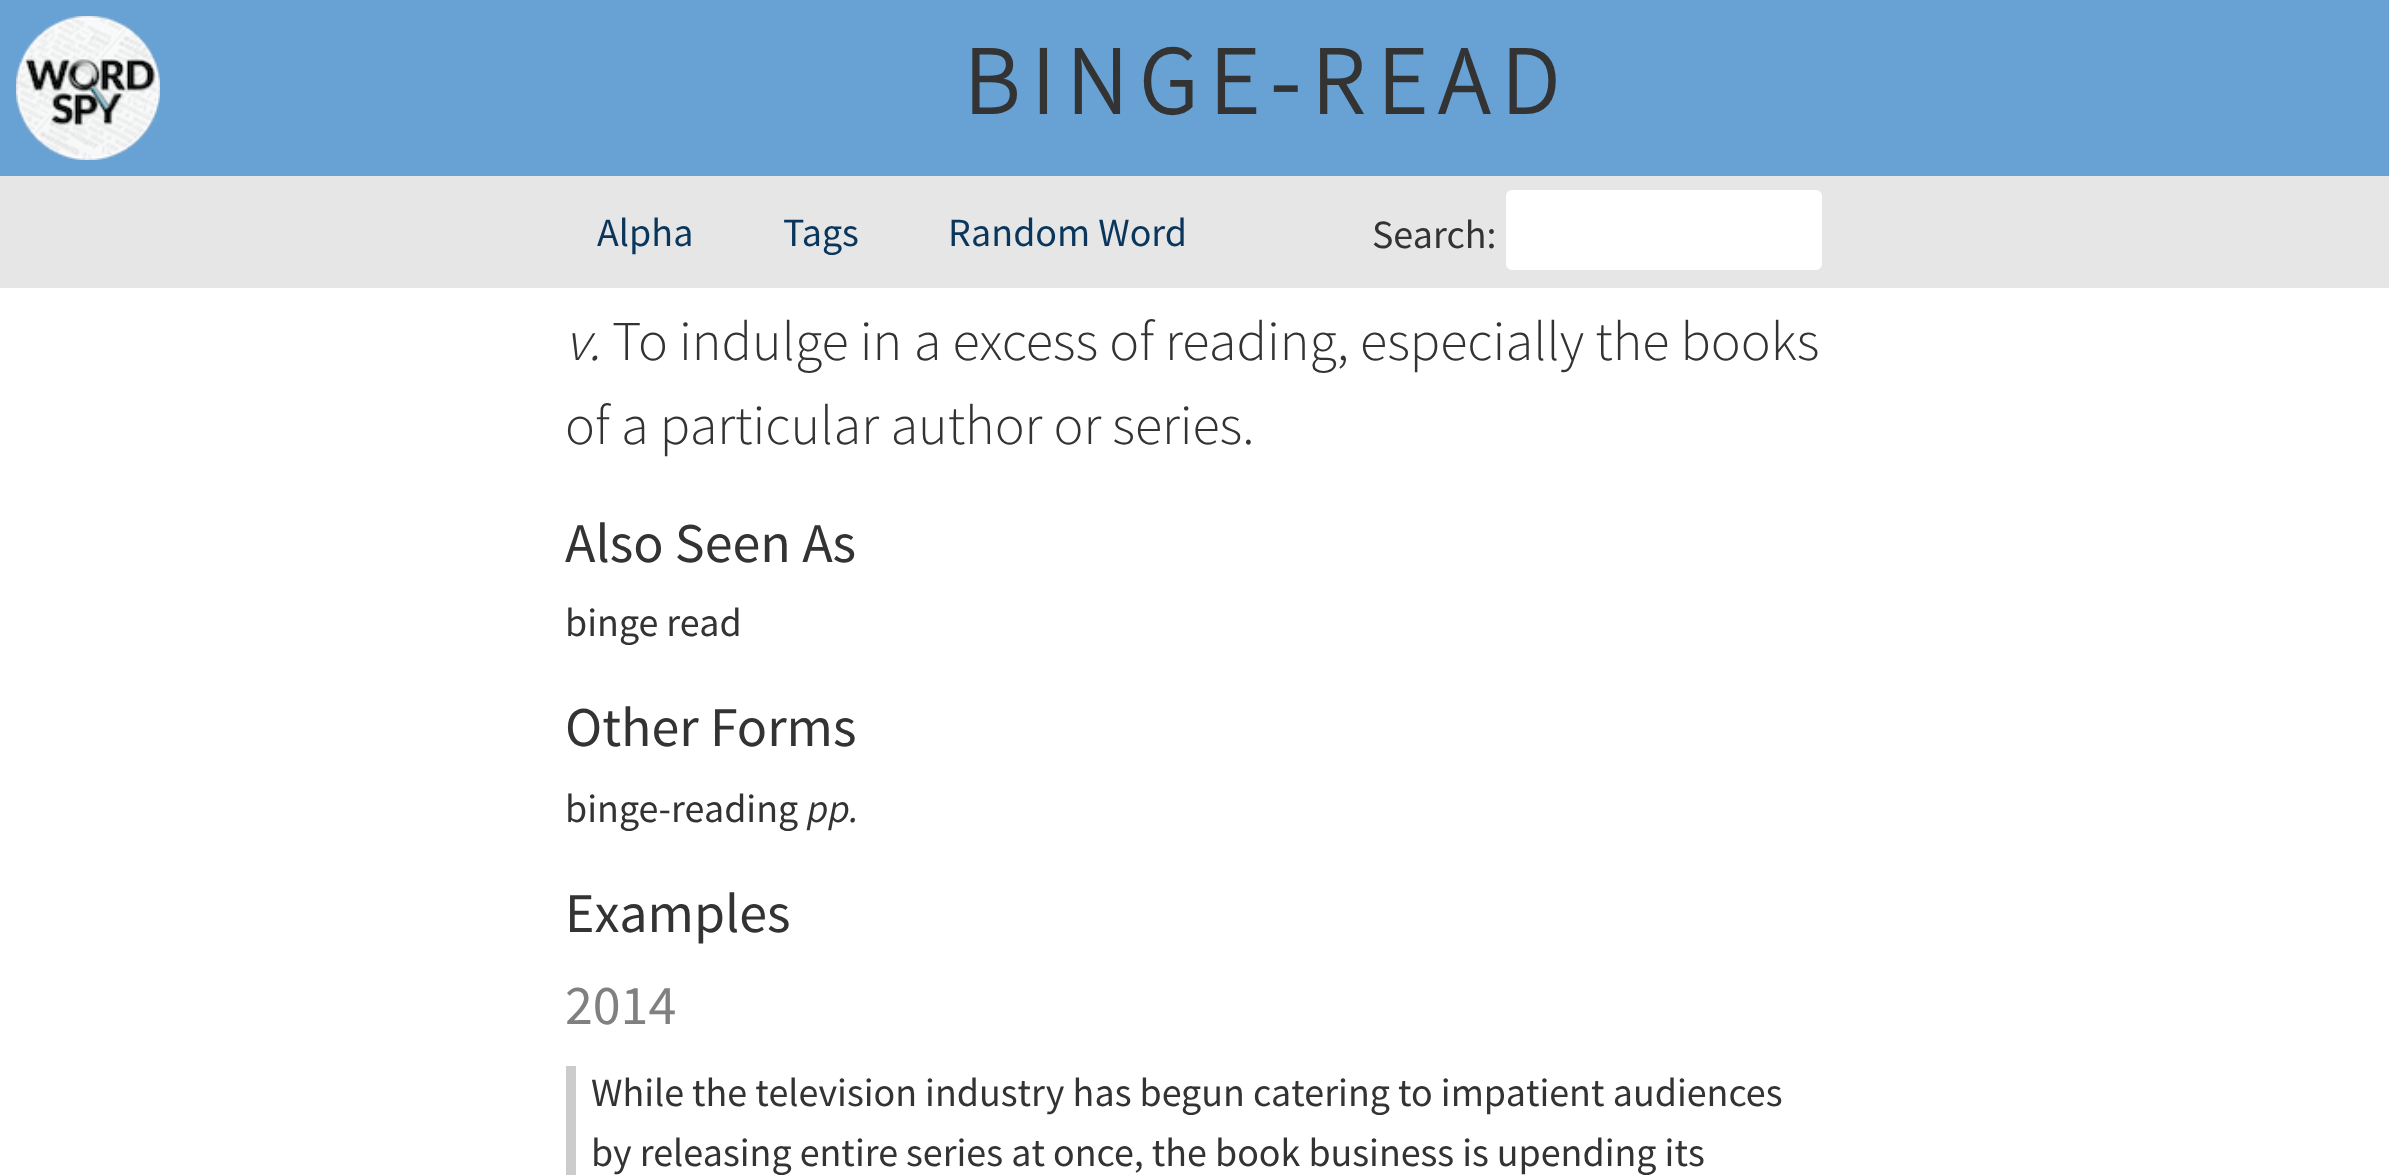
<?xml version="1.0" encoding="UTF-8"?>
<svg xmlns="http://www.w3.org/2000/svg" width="2389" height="1175">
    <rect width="100%" height="100%" fill="#FFFFFF"/>
    <rect x="0" y="0" width="2389" height="176" fill="#68A2D4"/>
    <image x="16" y="16" width="144" height="144" href="img_01.png"/>
    <text x="963" y="114" font-family="Source Sans Pro" font-size="96" font-weight="700" letter-spacing="12" fill="#333333">BINGE-READ</text>
    <rect x="0" y="176" width="2389" height="112" fill="#E6E6E6"/>
    <text x="597" y="246" font-family="Source Sans Pro" font-size="40" fill="#0A365C">Alpha</text>
    <text x="783" y="246" font-family="Source Sans Pro" font-size="40" fill="#0A365C">Tags</text>
    <text x="948" y="246" font-family="Source Sans Pro" font-size="40" fill="#0A365C">Random Word</text>
    <text x="1372" y="248" font-family="Source Sans Pro" font-size="40" fill="#333333">Search:</text>
    <rect x="1505" y="189" width="318" height="82" rx="7" fill="#FFFFFF" stroke="#E6E6E6" stroke-width="2"/>
    <text x="565" y="360" font-family="Source Sans Pro" font-size="56" font-weight="300" font-style="italic" fill="#333333">v.</text>
    <text x="612" y="360" font-family="Source Sans Pro" font-size="56" font-weight="300" fill="#333333">To indulge in a excess of reading, especially the books</text>
    <text x="565" y="444" font-family="Source Sans Pro" font-size="56" font-weight="300" fill="#333333">of a particular author or series.</text>
    <text x="565" y="562" font-family="Source Sans Pro" font-size="56" fill="#333333">Also Seen As</text>
    <text x="565" y="636" font-family="Source Sans Pro" font-size="40" fill="#333333">binge read</text>
    <text x="565" y="746" font-family="Source Sans Pro" font-size="56" fill="#333333">Other Forms</text>
    <text x="565" y="822" font-family="Source Sans Pro" font-size="40" fill="#333333">binge-reading</text>
    <text x="807" y="822" font-family="Source Sans Pro" font-size="40" font-style="italic" fill="#333333">pp.</text>
    <text x="565" y="932" font-family="Source Sans Pro" font-size="56" fill="#333333">Examples</text>
    <text x="565" y="1024" font-family="Source Sans Pro" font-size="56" fill="#808080">2014</text>
    <rect x="566" y="1066" width="10" height="109" fill="#CCCCCC"/>
    <text font-family="Source Sans Pro" font-size="40" fill="#333333">
        <tspan x="591" y="1106">While the television industry has begun catering to impatient audiences</tspan>
        <tspan x="591" y="1166">by releasing entire series at once, the book business is upending its</tspan>
    </text>
</svg>
